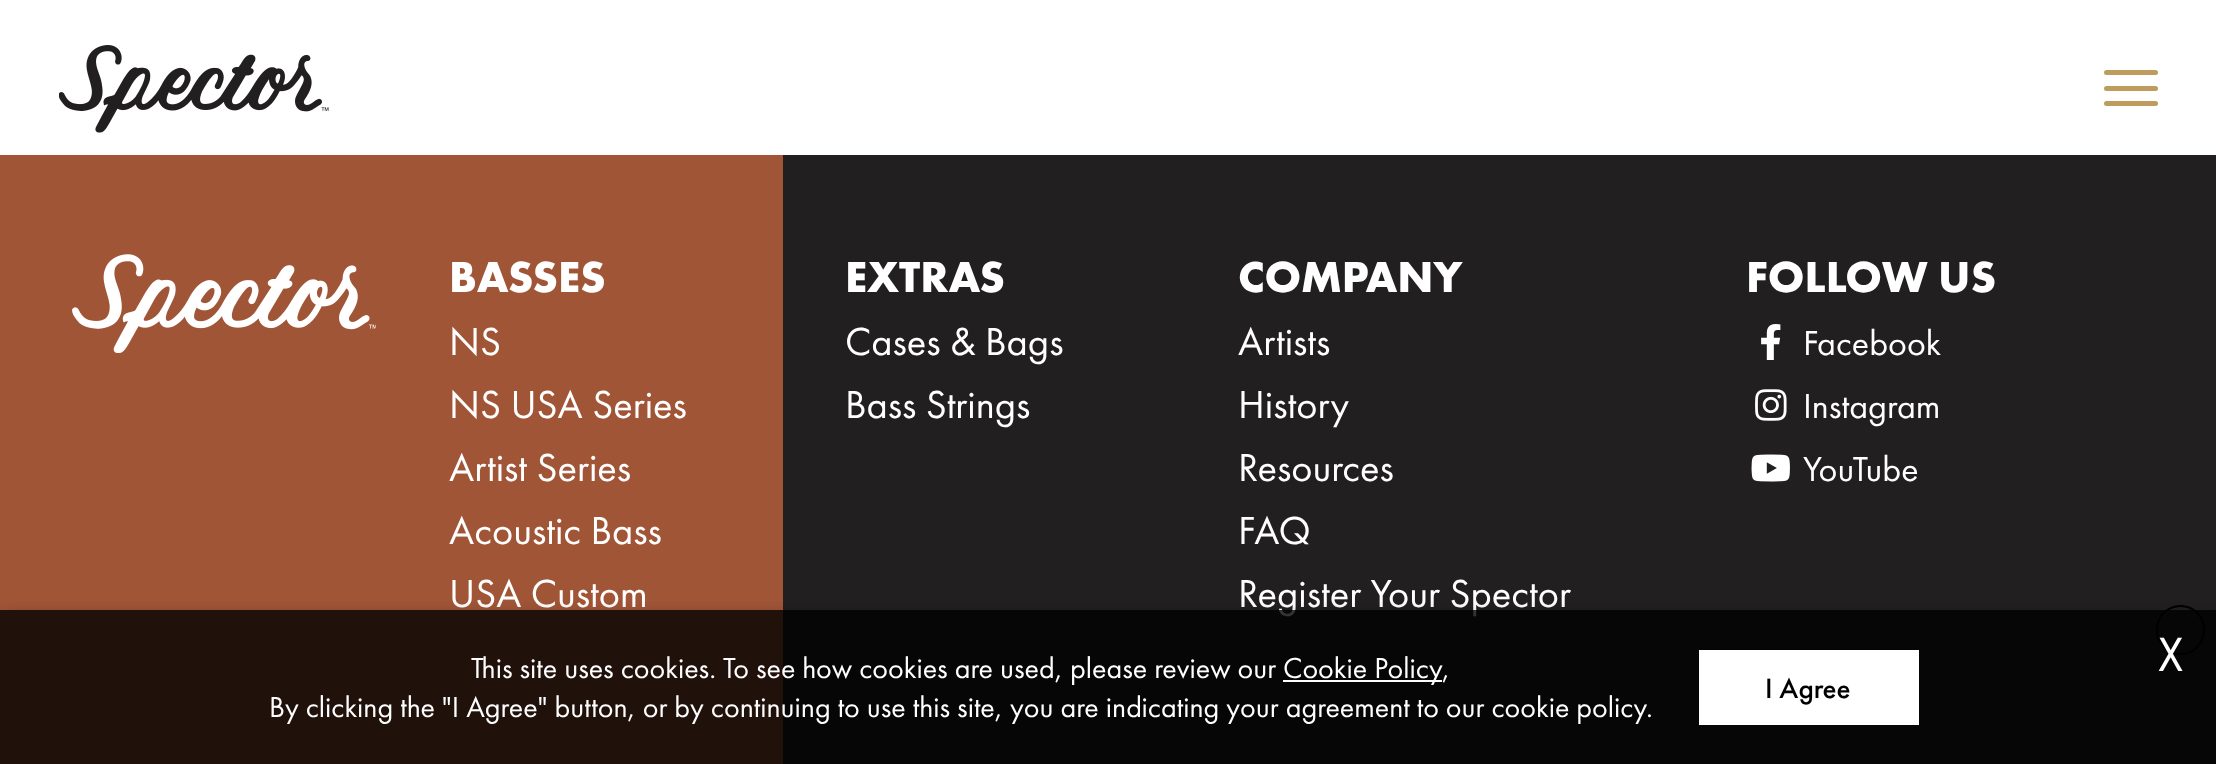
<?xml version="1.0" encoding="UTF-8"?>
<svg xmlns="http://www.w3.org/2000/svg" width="2216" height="764">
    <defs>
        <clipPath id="clip1"><rect x="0" y="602" width="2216" height="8"/></clipPath>
        <filter id="blur1" x="-50%" y="-200%" width="200%" height="500%"><feGaussianBlur stdDeviation="11"/></filter>
    </defs>
    <rect width="100%" height="100%" fill="#211F1F"/>
    <rect x="0" y="0" width="2216" height="155" fill="#FFFFFF"/>
    <image x="59" y="45" width="270" height="88" href="img_01.png"/>
    <rect x="2104" y="70" width="54" height="5" rx="2.5" fill="#BF9C5C"/>
    <rect x="2104" y="86" width="54" height="5" rx="2.5" fill="#BF9C5C"/>
    <rect x="2104" y="101" width="54" height="5" rx="2.5" fill="#BF9C5C"/>
    <rect x="0" y="155" width="783" height="609" fill="#A15537"/>
    <image x="72" y="254" width="304" height="99" href="img_02.png"/>
    <text x="449" y="292" font-family="Futura PT" font-size="45" font-weight="700" fill="#FFFFFF">BASSES</text>
    <text font-family="Futura PT" font-size="40.5" fill="#FFFFFF">
        <tspan x="449" y="355">NS</tspan>
        <tspan x="449" y="418">NS USA Series</tspan>
        <tspan x="449" y="481">Artist Series</tspan>
        <tspan x="449" y="544">Acoustic Bass</tspan>
        <tspan x="449" y="607">USA Custom</tspan>
    </text>
    <text x="845" y="292" font-family="Futura PT" font-size="45" font-weight="700" fill="#FFFFFF">EXTRAS</text>
    <text font-family="Futura PT" font-size="40.5" fill="#FFFFFF">
        <tspan x="845" y="355">Cases &amp; Bags</tspan>
        <tspan x="845" y="418">Bass Strings</tspan>
    </text>
    <text x="1238" y="292" font-family="Futura PT" font-size="45" font-weight="700" fill="#FFFFFF">COMPANY</text>
    <text font-family="Futura PT" font-size="40.5" fill="#FFFFFF">
        <tspan x="1238" y="355">Artists</tspan>
        <tspan x="1238" y="418">History</tspan>
        <tspan x="1238" y="481">Resources</tspan>
        <tspan x="1238" y="544">FAQ</tspan>
        <tspan x="1238" y="607">Register Your Spector</tspan>
    </text>
    <text x="1746" y="292" font-family="Futura PT" font-size="45" font-weight="700" fill="#FFFFFF">FOLLOW US</text>
    <image x="1761" y="324" width="20" height="36" href="img_03.png"/>
    <text x="1803" y="355" font-family="Futura PT" font-size="36" fill="#FFFFFF">Facebook</text>
    <image x="1755" y="389" width="32" height="32" href="img_04.png"/>
    <text x="1803" y="418" font-family="Futura PT" font-size="36" fill="#FFFFFF">Instagram</text>
    <image x="1751" y="454" width="39" height="28" href="img_05.png"/>
    <text x="1803" y="481" font-family="Futura PT" font-size="36" fill="#FFFFFF">YouTube</text>
    <g clip-path="url(#clip1)">
        <rect x="0" y="621" width="2216" height="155" fill="#000000" fill-opacity="0.5" filter="url(#blur1)"/>
    </g>
    <rect x="0" y="610" width="2216" height="154" fill="#000000" fill-opacity="0.8"/>
    <text x="471" y="678" font-family="Futura PT" font-size="30" fill="#FFFFFF">This site uses cookies. To see how cookies are used, please review our</text>
    <rect x="1283" y="680" width="159" height="2" fill="#FFFFFF"/>
    <text x="1283" y="678" font-family="Futura PT" font-size="30" fill="#FFFFFF">Cookie Policy</text>
    <text x="1442" y="678" font-family="Futura PT" font-size="30" fill="#FFFFFF">,</text>
    <text x="269" y="717" font-family="Futura PT" font-size="30" fill="#FFFFFF">By clicking the "I Agree" button, or by continuing to use this site, you are indicating your agreement to our cookie policy.</text>
    <rect x="1699" y="650" width="220" height="75" fill="#FFFFFF"/>
    <text x="1765" y="698" font-family="Futura PT" font-size="29" font-weight="500" fill="#000000">I Agree</text>
    <rect x="2157" y="606" width="47" height="48" rx="23.5" fill="none" stroke="#000000" stroke-width="2"/>
    <text x="2158" y="671" font-family="Futura PT" font-size="50" fill="#FFFFFF">X</text>
</svg>
